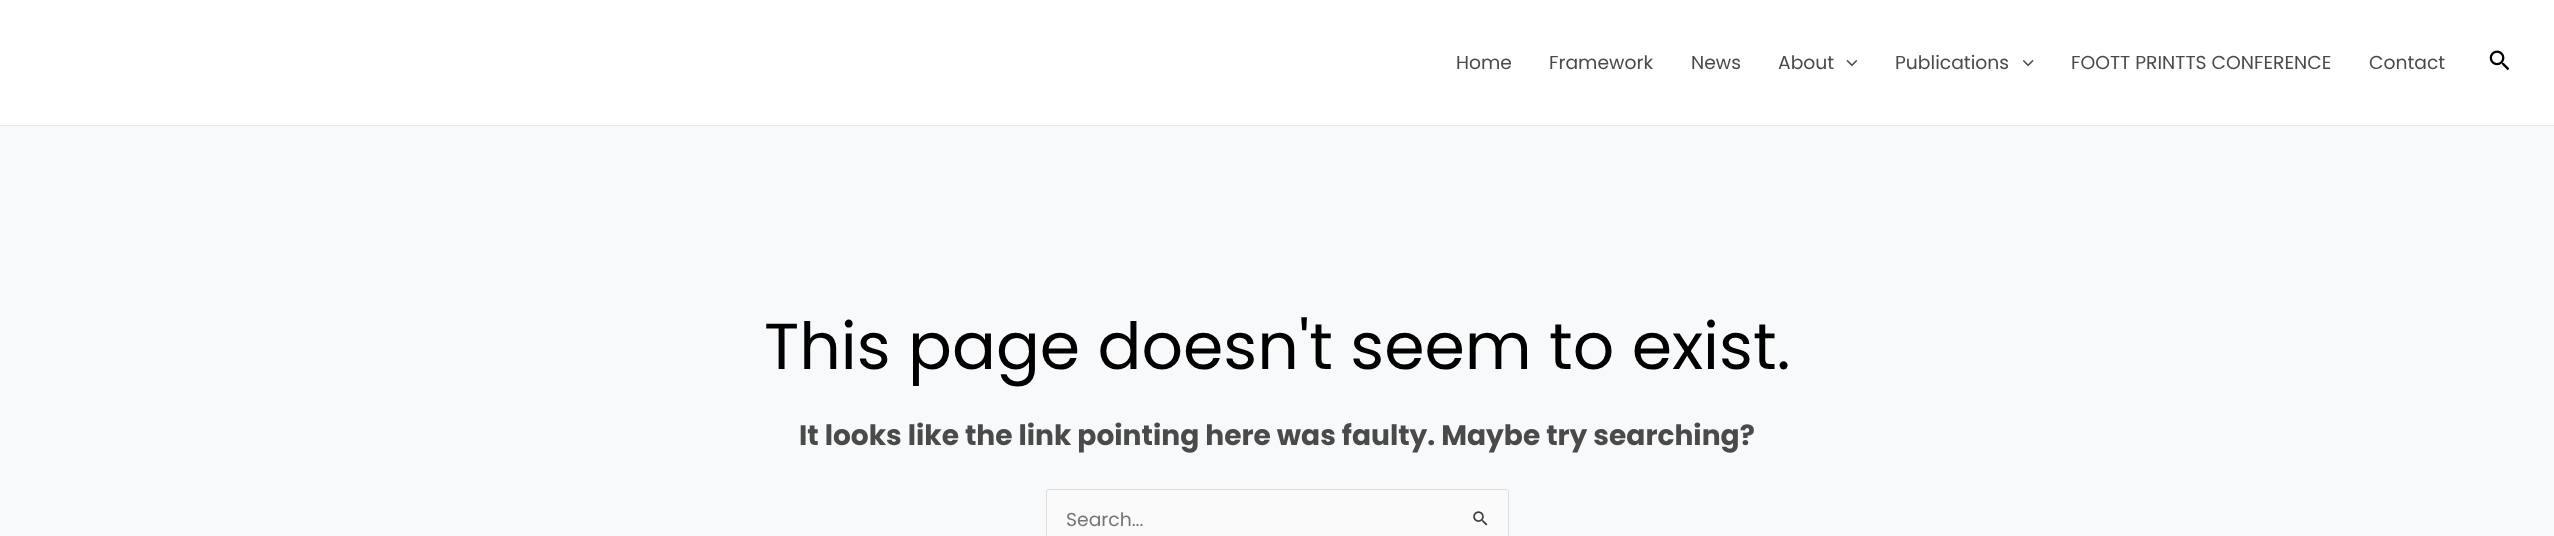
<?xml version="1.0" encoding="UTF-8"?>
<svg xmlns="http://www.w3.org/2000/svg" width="2554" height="536">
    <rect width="100%" height="100%" fill="#F7F9FB"/>
    <rect x="0" y="0" width="2554" height="125" fill="#FFFFFF"/>
    <rect x="0" y="125" width="2554" height="1" fill="#EAEAEA"/>
    <text x="1456" y="69" font-family="Poppins" font-size="18.75" fill="#4A4A4A">Home</text>
    <text x="1549" y="69" font-family="Poppins" font-size="18.75" fill="#4A4A4A">Framework</text>
    <text x="1691" y="69" font-family="Poppins" font-size="18.75" fill="#4A4A4A">News</text>
    <text x="1778" y="69" font-family="Poppins" font-size="18.75" fill="#4A4A4A">About</text>
    <image x="1846" y="60" width="12" height="7" href="img_01.png"/>
    <text x="1895" y="69" font-family="Poppins" font-size="18.75" fill="#4A4A4A">Publications</text>
    <image x="2023" y="60" width="11" height="7" href="img_02.png"/>
    <text x="2071" y="69" font-family="Poppins" font-size="18.75" fill="#4A4A4A">FOOTT PRINTTS CONFERENCE</text>
    <text x="2369" y="69" font-family="Poppins" font-size="18.75" fill="#4A4A4A">Contact</text>
    <image x="2489" y="50" width="20" height="21" href="img_03.png"/>
    <text x="764" y="369" font-family="Poppins" font-size="65" fill="#000000">This page doesn't seem to exist.</text>
    <text x="799" y="445" font-family="Poppins" font-size="28.1" font-weight="700" fill="#4A4A4A">It looks like the link pointing here was faulty. Maybe try searching?</text>
    <rect x="1046.5" y="489.5" width="462" height="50" rx="2" fill="#FAFAFA" stroke="#DDDDDD"/>
    <text x="1066" y="526" font-family="Poppins" font-size="18.75" fill="#757575">Search...</text>
    <image x="1473" y="511" width="15" height="15" href="img_04.png"/>
</svg>
